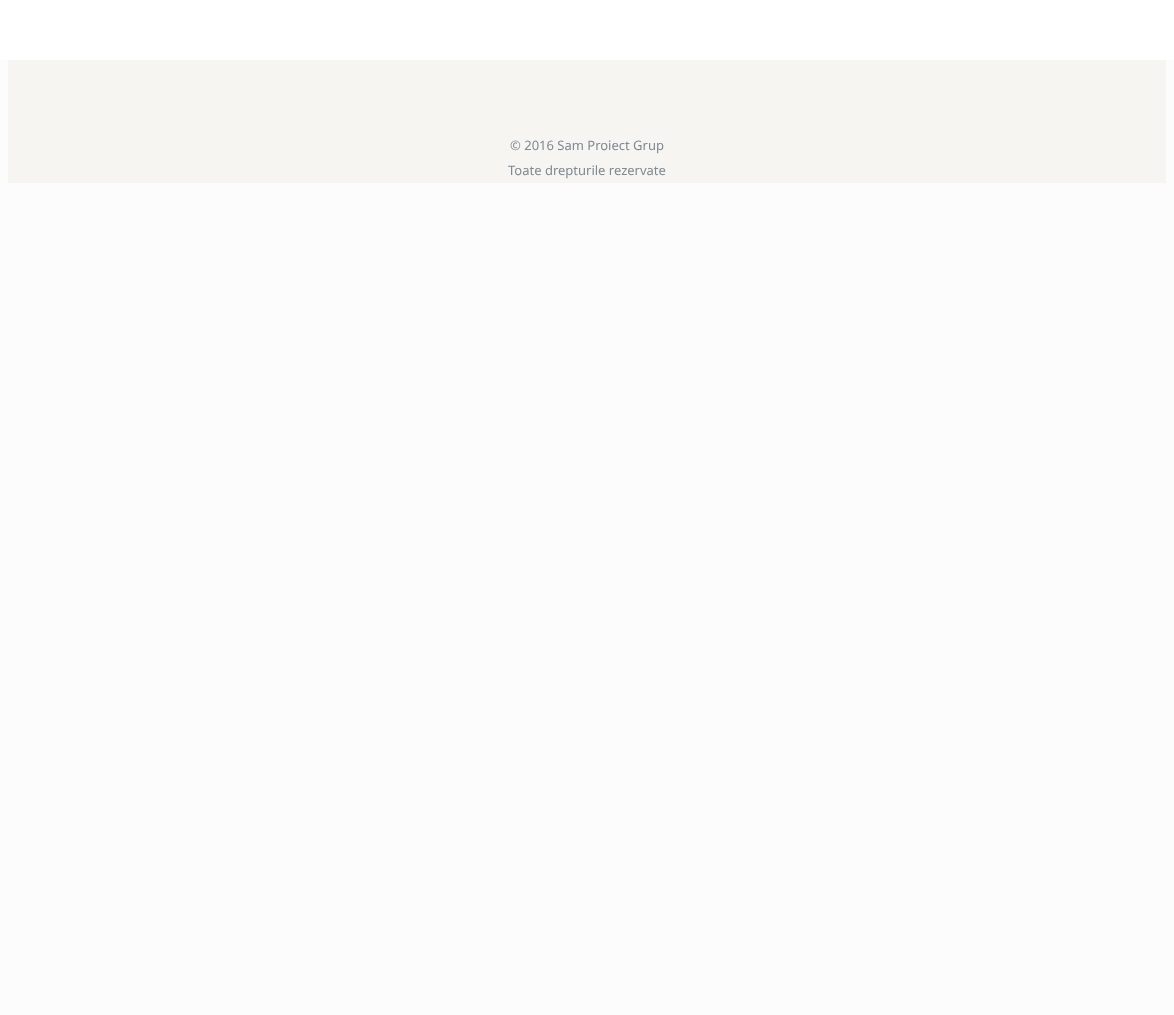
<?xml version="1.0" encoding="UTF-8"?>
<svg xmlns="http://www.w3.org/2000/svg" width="1174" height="1015">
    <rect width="100%" height="100%" fill="#FCFCFC"/>
    <rect x="0" y="0" width="1174" height="60" fill="#FFFFFF"/>
    <rect x="8" y="60" width="1158" height="123" fill="#F7F5F2"/>
    <text x="510" y="150" font-family="Noto Sans" font-size="13" fill="#7E8993">© 2016 Sam Proiect Grup</text>
    <text x="508" y="175" font-family="Noto Sans" font-size="13" fill="#7E8993">Toate drepturile rezervate</text>
</svg>
